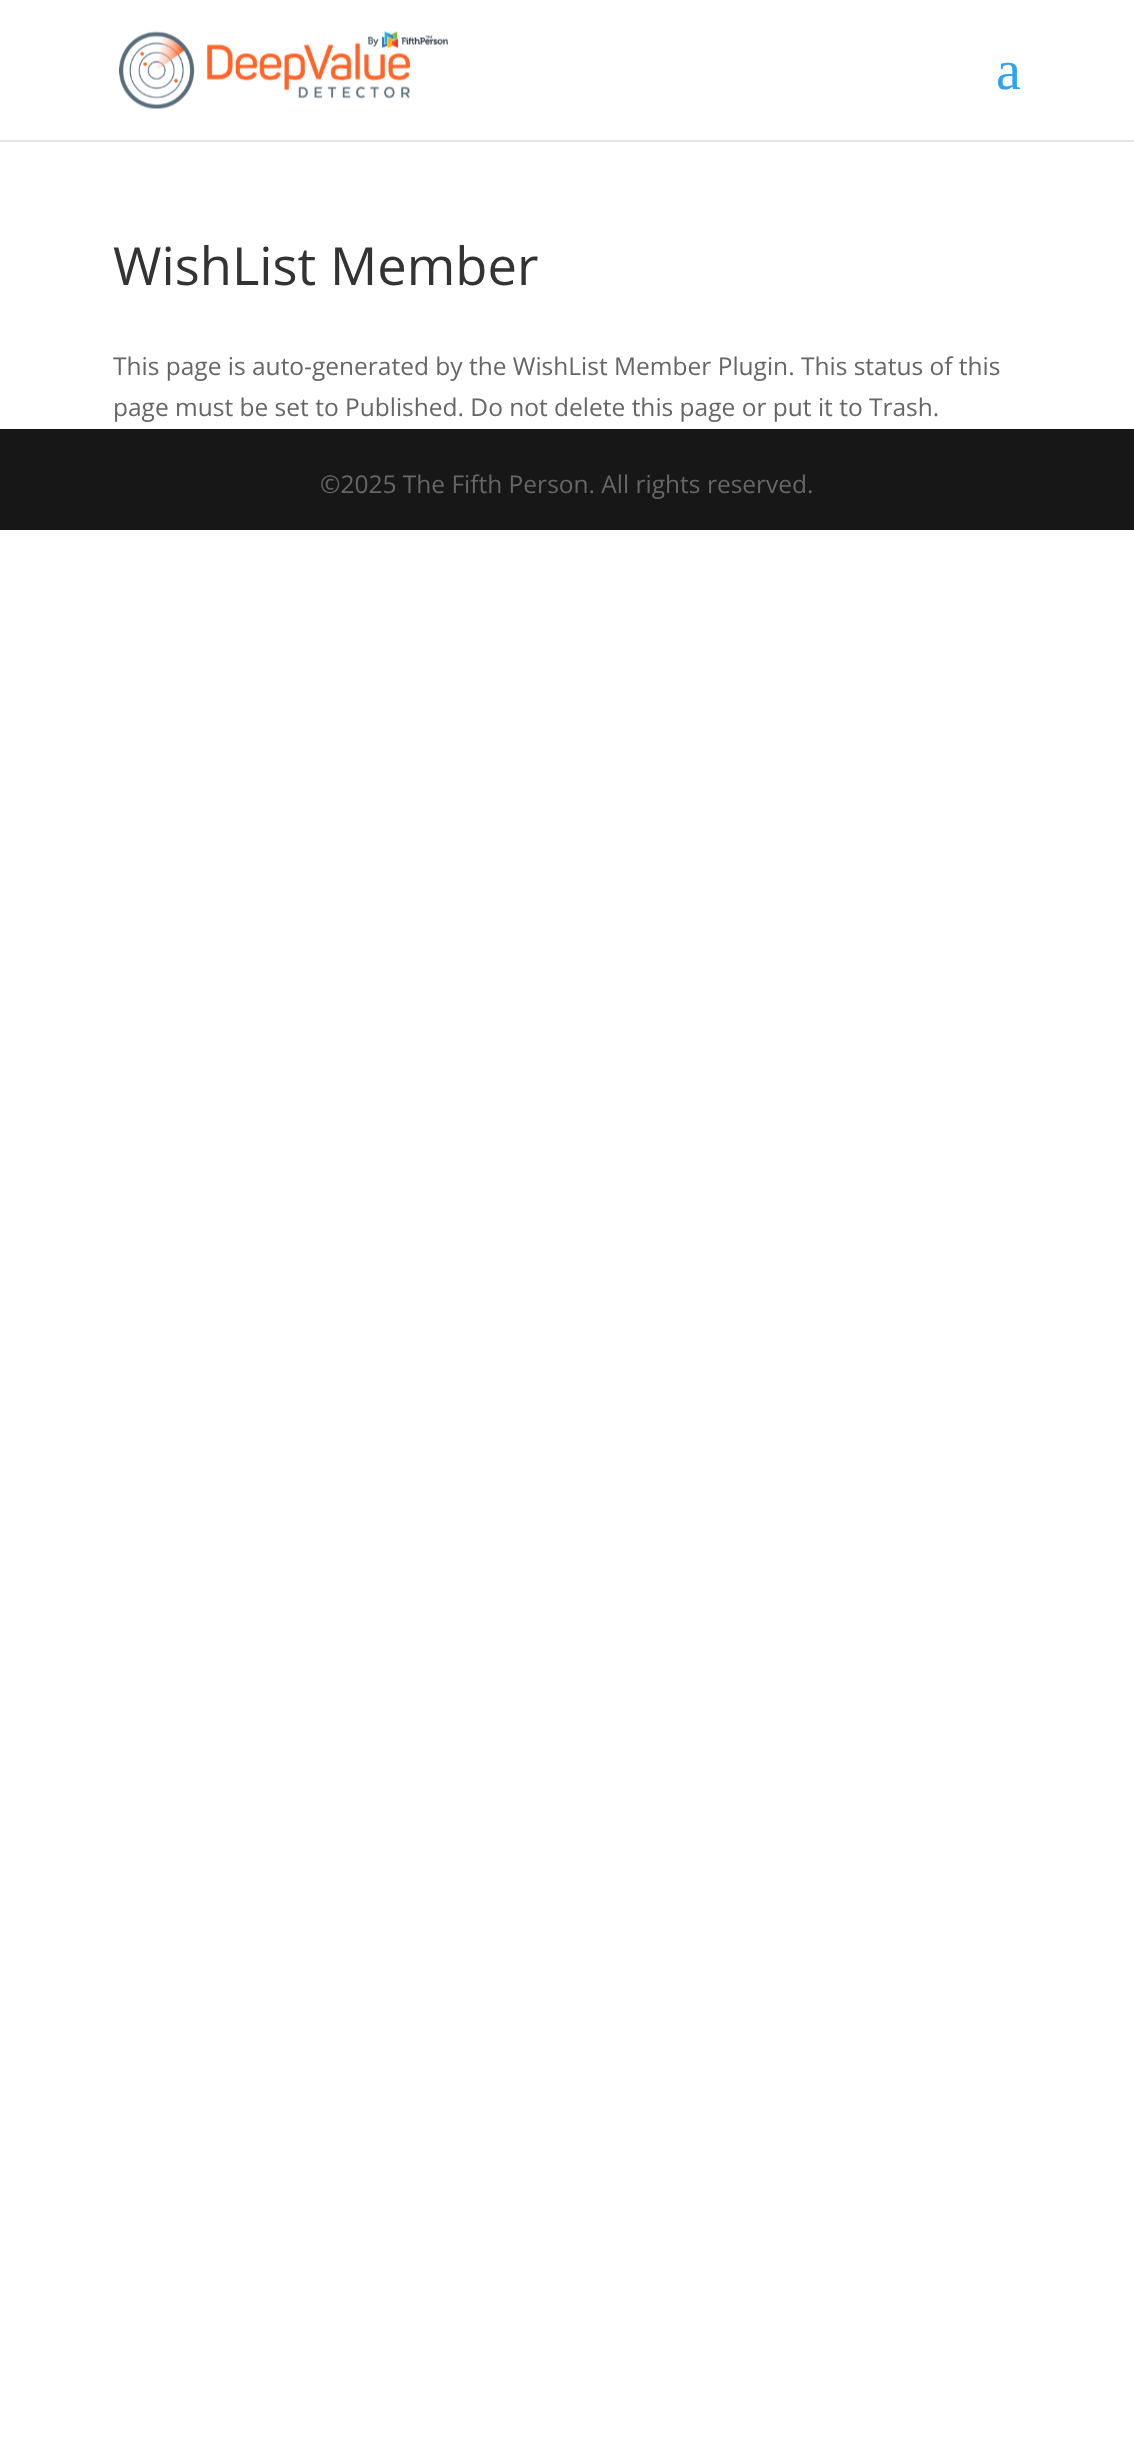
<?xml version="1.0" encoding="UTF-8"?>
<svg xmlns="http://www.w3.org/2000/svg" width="1134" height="2444">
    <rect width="100%" height="100%" fill="#FFFFFF"/>
    <rect x="0" y="140" width="1134" height="2" fill="#E6E6E6"/>
    <image x="119" y="31" width="329" height="78" href="img_01.png"/>
    <text x="996" y="89" font-family="Liberation Serif" font-size="56" fill="#2EA3F2">a</text>
    <text x="113" y="285" font-family="Open Sans" font-size="52.5" fill="#333333">WishList Member</text>
    <text font-family="Open Sans" font-size="24.5" fill="#666666">
        <tspan x="113" y="375">This page is auto-generated by the WishList Member Plugin. This status of this</tspan>
        <tspan x="113" y="416">page must be set to Published. Do not delete this page or put it to Trash.</tspan>
    </text>
    <rect x="0" y="429" width="1134" height="101" fill="#171717"/>
    <text x="320" y="493" font-family="Open Sans" font-size="24.5" fill="#666666">©2025 The Fifth Person. All rights reserved.</text>
</svg>
